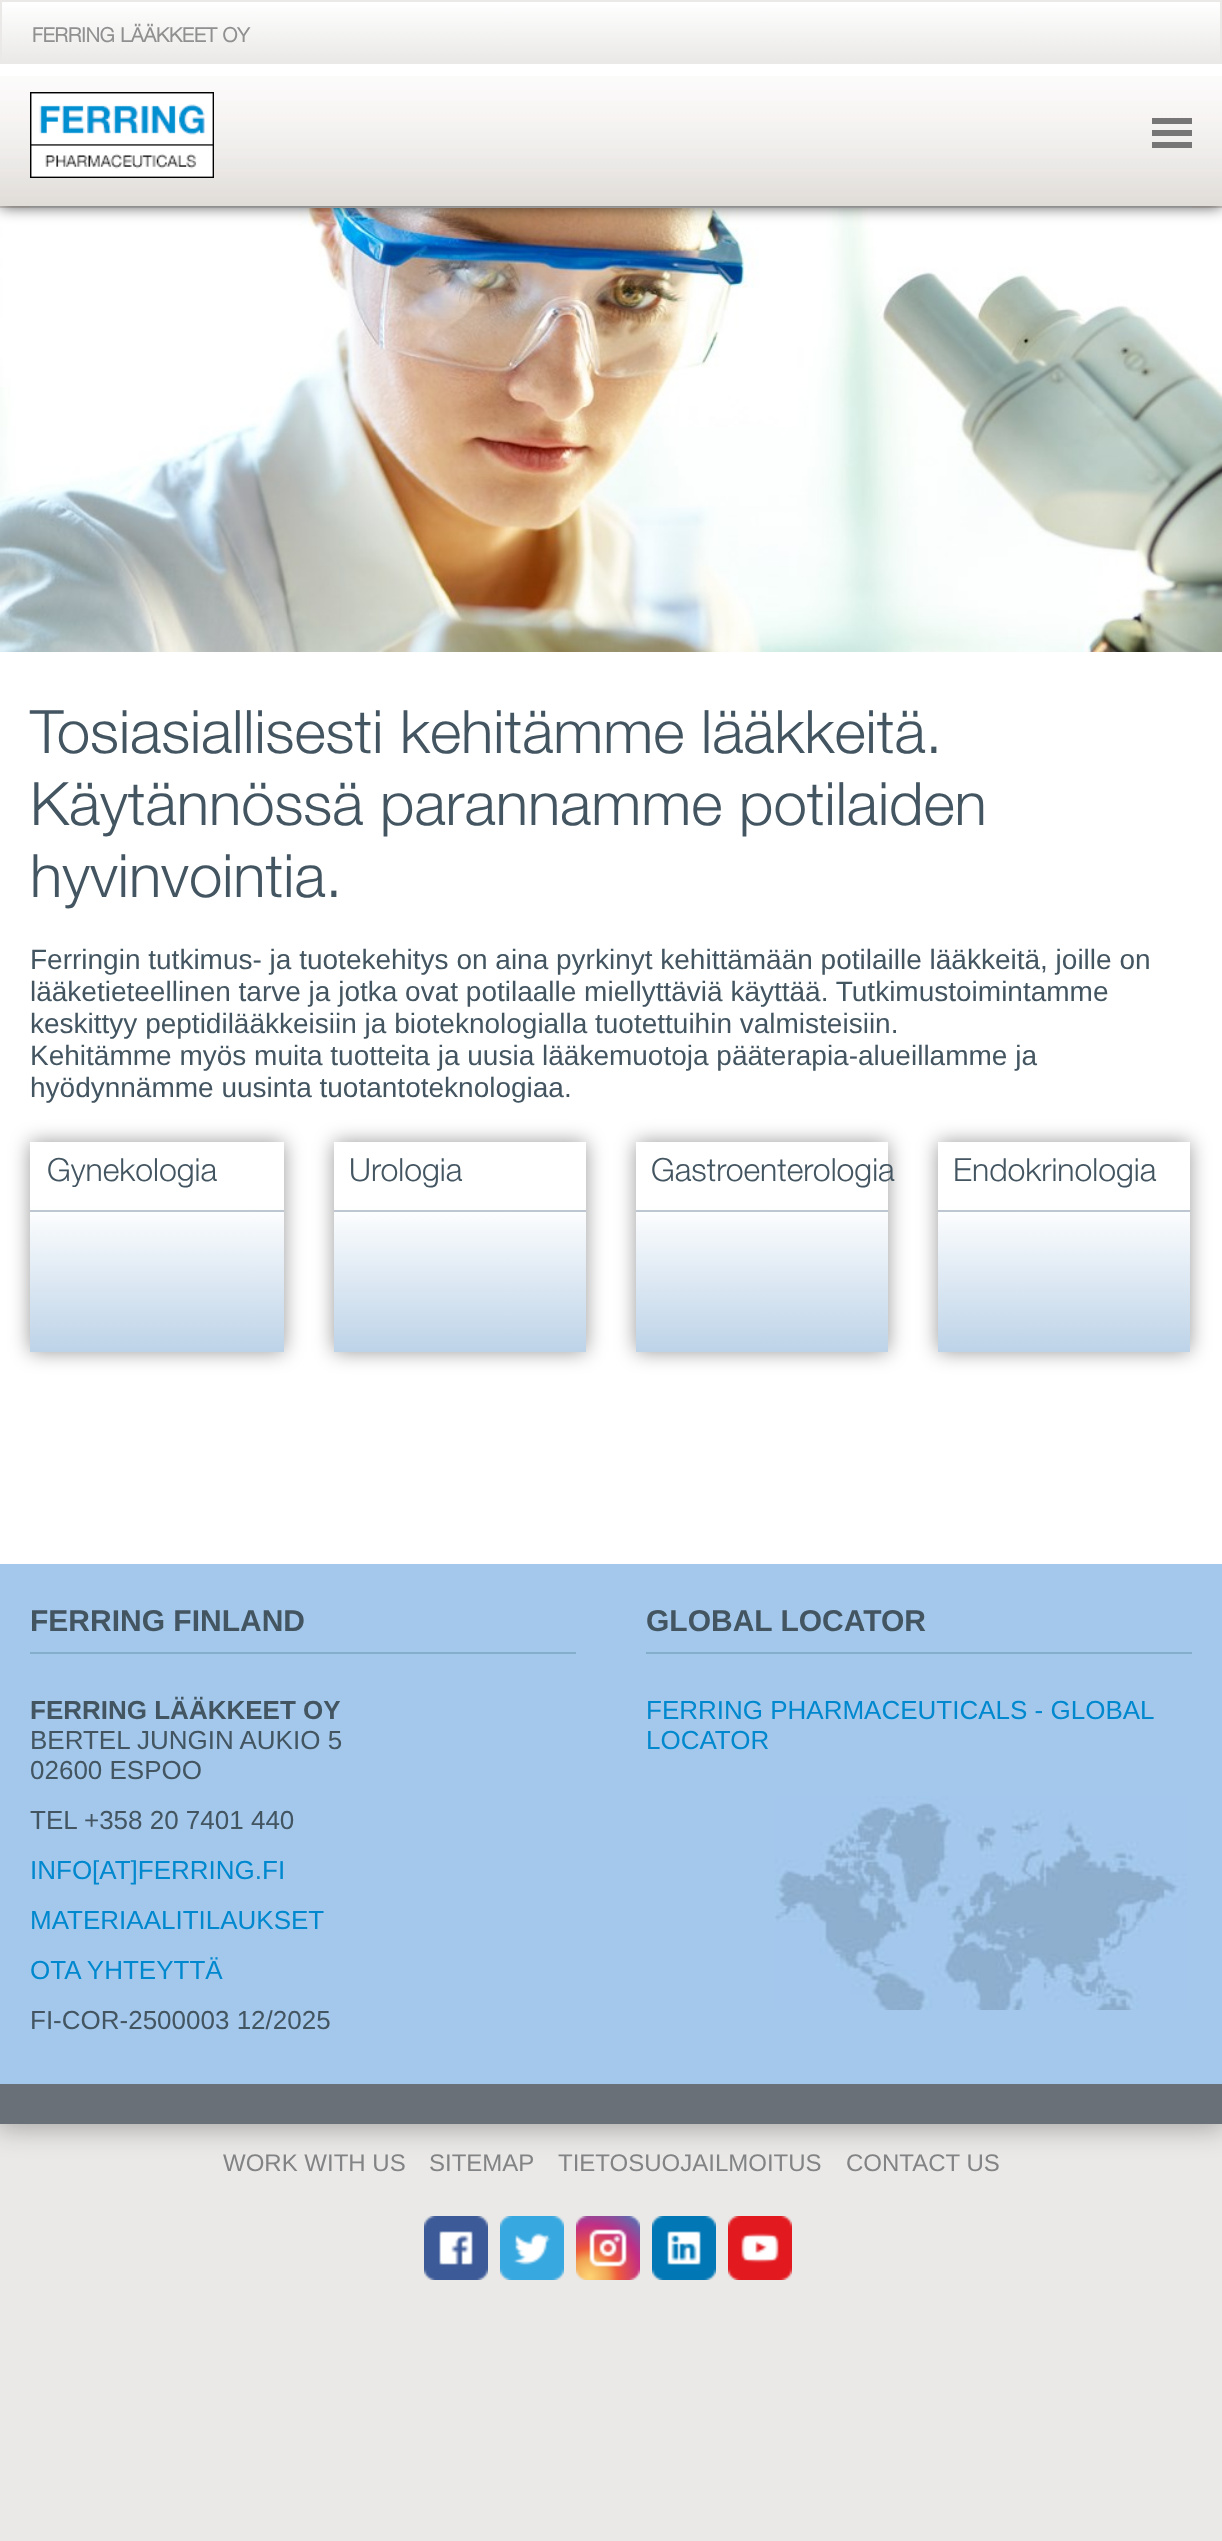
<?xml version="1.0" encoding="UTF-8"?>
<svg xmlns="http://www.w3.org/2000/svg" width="1222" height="2541">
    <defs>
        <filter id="blur1" x="-50%" y="-200%" width="200%" height="500%"><feGaussianBlur stdDeviation="8"/></filter>
        <linearGradient id="g1" gradientUnits="userSpaceOnUse" x1="611" y1="2" x2="611" y2="62"><stop offset="0" stop-color="#FFFFFF"/><stop offset="1" stop-color="#EAE9E7"/></linearGradient>
        <filter id="blur2" x="-50%" y="-200%" width="200%" height="500%"><feGaussianBlur stdDeviation="10"/></filter>
        <linearGradient id="g2" gradientUnits="userSpaceOnUse" x1="157" y1="1142" x2="157" y2="1352"><stop offset="0.3" stop-color="#FFFFFF"/><stop offset="1" stop-color="#BDD3E8"/></linearGradient>
        <linearGradient id="g3" gradientUnits="userSpaceOnUse" x1="460" y1="1142" x2="460" y2="1352"><stop offset="0.3" stop-color="#FFFFFF"/><stop offset="1" stop-color="#BDD3E8"/></linearGradient>
        <linearGradient id="g4" gradientUnits="userSpaceOnUse" x1="762" y1="1142" x2="762" y2="1352"><stop offset="0.3" stop-color="#FFFFFF"/><stop offset="1" stop-color="#BDD3E8"/></linearGradient>
        <linearGradient id="g5" gradientUnits="userSpaceOnUse" x1="1064" y1="1142" x2="1064" y2="1352"><stop offset="0.3" stop-color="#FFFFFF"/><stop offset="1" stop-color="#BDD3E8"/></linearGradient>
        <clipPath id="clip1"><rect x="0" y="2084" width="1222" height="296"/></clipPath>
        <filter id="blur3" x="-50%" y="-200%" width="200%" height="500%"><feGaussianBlur stdDeviation="14"/></filter>
    </defs>
    <rect width="100%" height="100%" fill="#EAE9E7"/>
    <rect x="0" y="206" width="1222" height="2" fill="#DFDAD6"/>
    <rect x="30" y="206" width="1162" height="2" fill="#DFDFDF"/>
    <image x="0" y="208" width="1222" height="444" href="img_04.png"/>
    <rect x="0" y="0" width="1222" height="206" fill="#000000" fill-opacity="0.75" filter="url(#blur1)"/>
    <rect x="0" y="64" width="1222" height="12" fill="#FFFFFF"/>
    <image x="0" y="76" width="1222" height="130" href="img_01.png"/>
    <rect x="2" y="2" width="1218" height="60" fill="url(#g1)"/>
    <rect x="1" y="1" width="1220" height="62" fill="none" stroke="#EAE9E7" stroke-width="2"/>
    <text x="32" y="42" font-family="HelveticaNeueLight" font-size="20" font-weight="700" fill="#909090">FERRING LÄÄKKEET OY</text>
    <image x="30" y="92" width="184" height="86" href="img_02.png"/>
    <image x="1152" y="118" width="40" height="30" href="img_03.png"/>
    <rect x="0" y="652" width="1222" height="912" fill="#FFFFFF"/>
    <text font-family="HelveticaNeueLight" font-size="60" font-weight="300" fill="#435561">
        <tspan x="30" y="753">Tosiasiallisesti kehitämme lääkkeitä.</tspan>
        <tspan x="30" y="825">Käytännössä parannamme potilaiden</tspan>
        <tspan x="30" y="897">hyvinvointia.</tspan>
    </text>
    <text font-family="Liberation Sans" font-size="28" fill="#435561">
        <tspan x="30" y="969">Ferringin tutkimus- ja tuotekehitys on aina pyrkinyt kehittämään potilaille lääkkeitä, joille on</tspan>
        <tspan x="30" y="1001">lääketieteellinen tarve ja jotka ovat potilaalle miellyttäviä käyttää. Tutkimustoimintamme</tspan>
        <tspan x="30" y="1033">keskittyy peptidilääkkeisiin ja bioteknologialla tuotettuihin valmisteisiin.</tspan>
        <tspan x="30" y="1065">Kehitämme myös muita tuotteita ja uusia lääkemuotoja pääterapia-alueillamme ja</tspan>
        <tspan x="30" y="1097">hyödynnämme uusinta tuotantoteknologiaa.</tspan>
    </text>
    <rect x="30" y="1142" width="254" height="210" fill="#000000" fill-opacity="0.4" filter="url(#blur2)"/>
    <rect x="30" y="1142" width="254" height="210" fill="url(#g2)"/>
    <text x="47" y="1181" font-family="HelveticaNeueLight" font-size="32" font-weight="300" fill="#435561">Gynekologia</text>
    <rect x="30" y="1210" width="254" height="2" fill="#BEC6D1"/>
    <rect x="334" y="1142" width="252" height="210" fill="#000000" fill-opacity="0.4" filter="url(#blur2)"/>
    <rect x="334" y="1142" width="252" height="210" fill="url(#g3)"/>
    <text x="349" y="1181" font-family="HelveticaNeueLight" font-size="32" font-weight="300" fill="#435561">Urologia</text>
    <rect x="334" y="1210" width="252" height="2" fill="#BEC6D1"/>
    <rect x="636" y="1142" width="252" height="210" fill="#000000" fill-opacity="0.4" filter="url(#blur2)"/>
    <rect x="636" y="1142" width="252" height="210" fill="url(#g4)"/>
    <text x="651" y="1181" font-family="HelveticaNeueLight" font-size="32" font-weight="300" fill="#435561">Gastroenterologia</text>
    <rect x="636" y="1210" width="252" height="2" fill="#BEC6D1"/>
    <rect x="938" y="1142" width="252" height="210" fill="#000000" fill-opacity="0.4" filter="url(#blur2)"/>
    <rect x="938" y="1142" width="252" height="210" fill="url(#g5)"/>
    <text x="953" y="1181" font-family="HelveticaNeueLight" font-size="32" font-weight="300" fill="#435561">Endokrinologia</text>
    <rect x="938" y="1210" width="252" height="2" fill="#BEC6D1"/>
    <rect x="0" y="1564" width="1222" height="520" fill="#A3C8EC"/>
    <rect x="30" y="1652" width="546" height="2" fill="#83AFCB"/>
    <text x="30" y="1631" font-family="Liberation Sans" font-size="30" font-weight="700" fill="#435561">FERRING FINLAND</text>
    <text x="30" y="1719" font-family="Liberation Sans" font-size="26" font-weight="700" fill="#435561">FERRING LÄÄKKEET OY</text>
    <text font-family="Liberation Sans" font-size="26" fill="#435561">
        <tspan x="30" y="1749">BERTEL JUNGIN AUKIO 5</tspan>
        <tspan x="30" y="1779">02600 ESPOO</tspan>
        <tspan x="30" y="1829">TEL +358 20 7401 440</tspan>
    </text>
    <text font-family="Liberation Sans" font-size="26" fill="#0088CE">
        <tspan x="30" y="1879">INFO[AT]FERRING.FI</tspan>
        <tspan x="30" y="1929">MATERIAALITILAUKSET</tspan>
        <tspan x="30" y="1979">OTA YHTEYTTÄ</tspan>
    </text>
    <text x="30" y="2029" font-family="Liberation Sans" font-size="26" fill="#435561">FI-COR-2500003 12/2025</text>
    <image x="775" y="1796" width="412" height="214" href="img_05.png"/>
    <rect x="646" y="1652" width="546" height="2" fill="#83AFCB"/>
    <text x="646" y="1631" font-family="Liberation Sans" font-size="30" font-weight="700" fill="#435561">GLOBAL LOCATOR</text>
    <text font-family="Liberation Sans" font-size="26" fill="#0088CE">
        <tspan x="646" y="1719">FERRING PHARMACEUTICALS - GLOBAL</tspan>
        <tspan x="646" y="1749">LOCATOR</tspan>
    </text>
    <g clip-path="url(#clip1)">
        <rect x="-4" y="2080" width="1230" height="48" fill="#000000" fill-opacity="0.3" filter="url(#blur3)"/>
    </g>
    <rect x="0" y="2084" width="1222" height="40" fill="#697077"/>
    <text x="223" y="2171" font-family="Liberation Sans" font-size="24" fill="#828384">WORK WITH US</text>
    <text x="429" y="2171" font-family="Liberation Sans" font-size="24" fill="#828384">SITEMAP</text>
    <text x="558" y="2171" font-family="Liberation Sans" font-size="24" fill="#828384">TIETOSUOJAILMOITUS</text>
    <text x="846" y="2171" font-family="Liberation Sans" font-size="24" fill="#828384">CONTACT US</text>
    <image x="424" y="2216" width="64" height="64" href="img_06.png"/>
    <image x="500" y="2216" width="64" height="64" href="img_07.png"/>
    <image x="576" y="2216" width="64" height="64" href="img_08.png"/>
    <image x="652" y="2216" width="64" height="64" href="img_09.png"/>
    <image x="728" y="2216" width="64" height="64" href="img_10.png"/>
</svg>
